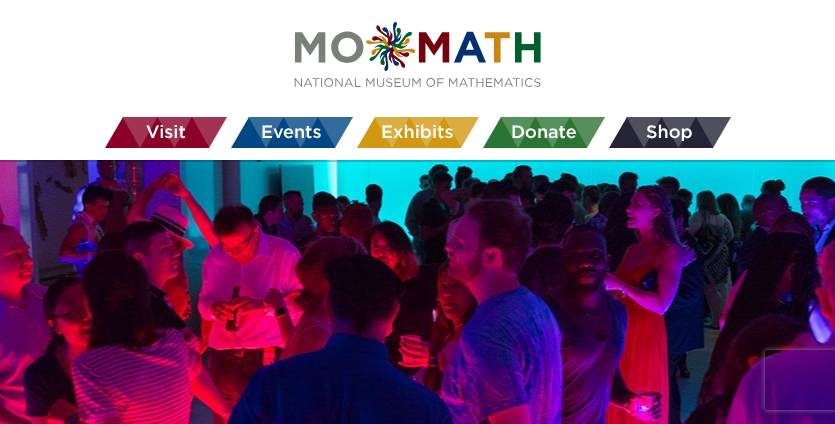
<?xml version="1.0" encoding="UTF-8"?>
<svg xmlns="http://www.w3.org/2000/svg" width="835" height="424">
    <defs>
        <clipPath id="clip1"><path d="M 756 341 H 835 V 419 H 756 Z M 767 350 H 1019 C 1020 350 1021 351 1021 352 V 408 C 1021 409 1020 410 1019 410 H 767 C 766 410 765 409 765 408 V 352 C 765 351 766 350 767 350 Z" clip-rule="evenodd"/></clipPath>
        <filter id="blur1" x="-50%" y="-200%" width="200%" height="500%"><feGaussianBlur stdDeviation="2.5"/></filter>
    </defs>
    <rect width="100%" height="100%" fill="#FFFFFF"/>
    <image x="294" y="22" width="247" height="65" href="img_01.png"/>
    <image x="0" y="160" width="835" height="264" href="img_02.png"/>
    <rect x="0" y="160" width="835" height="2" fill="#000000" fill-opacity="0.2"/>
    <path d="M 209 148 H 105 L 123 117 H 227 Z" fill="#8A0028"/>
    <path d="M 140 148 L 157.5 117 H 122.5 Z" fill="#A13353"/>
    <path d="M 174.5 148 L 192 117 H 157.5 Z" fill="#A13353"/>
    <path d="M 209.5 148 L 227 117 H 192 Z" fill="#FFFFFF" fill-opacity="0.2"/>
    <text x="146" y="138" font-family="Gotham" font-size="18" font-weight="500" fill="#FFFFFF">Visit</text>
    <path d="M 335 148 H 231 L 249 117 H 353 Z" fill="#004784"/>
    <path d="M 266 148 L 283.5 117 H 248.5 Z" fill="#336C9D"/>
    <path d="M 300.5 148 L 318 117 H 283.5 Z" fill="#336C9D"/>
    <path d="M 335.5 148 L 353 117 H 318 Z" fill="#FFFFFF" fill-opacity="0.2"/>
    <text x="261" y="138" font-family="Gotham" font-size="18" font-weight="500" fill="#FFFFFF">Events</text>
    <path d="M 461 148 H 357 L 375 117 H 479 Z" fill="#D39811"/>
    <path d="M 392 148 L 409.5 117 H 374.5 Z" fill="#DCAD41"/>
    <path d="M 426.5 148 L 444 117 H 409.5 Z" fill="#DCAD41"/>
    <path d="M 461.5 148 L 479 117 H 444 Z" fill="#FFFFFF" fill-opacity="0.2"/>
    <text x="381" y="138" font-family="Gotham" font-size="18" font-weight="500" fill="#FFFFFF">Exhibits</text>
    <path d="M 587 148 H 483 L 501 117 H 605 Z" fill="#2B7534"/>
    <path d="M 518 148 L 535.5 117 H 500.5 Z" fill="#55915D"/>
    <path d="M 552.5 148 L 570 117 H 535.5 Z" fill="#55915D"/>
    <path d="M 587.5 148 L 605 117 H 570 Z" fill="#FFFFFF" fill-opacity="0.2"/>
    <text x="511" y="138" font-family="Gotham" font-size="18" font-weight="500" fill="#FFFFFF">Donate</text>
    <path d="M 713 148 H 609 L 627 117 H 731 Z" fill="#242436"/>
    <path d="M 644 148 L 661.5 117 H 626.5 Z" fill="#50505E"/>
    <path d="M 678.5 148 L 696 117 H 661.5 Z" fill="#50505E"/>
    <path d="M 713.5 148 L 731 117 H 696 Z" fill="#FFFFFF" fill-opacity="0.2"/>
    <text x="646" y="138" font-family="Gotham" font-size="18" font-weight="500" fill="#FFFFFF">Shop</text>
    <g clip-path="url(#clip1)">
        <rect x="765" y="350" width="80" height="60" rx="2" fill="#808080" filter="url(#blur1)"/>
    </g>
</svg>
